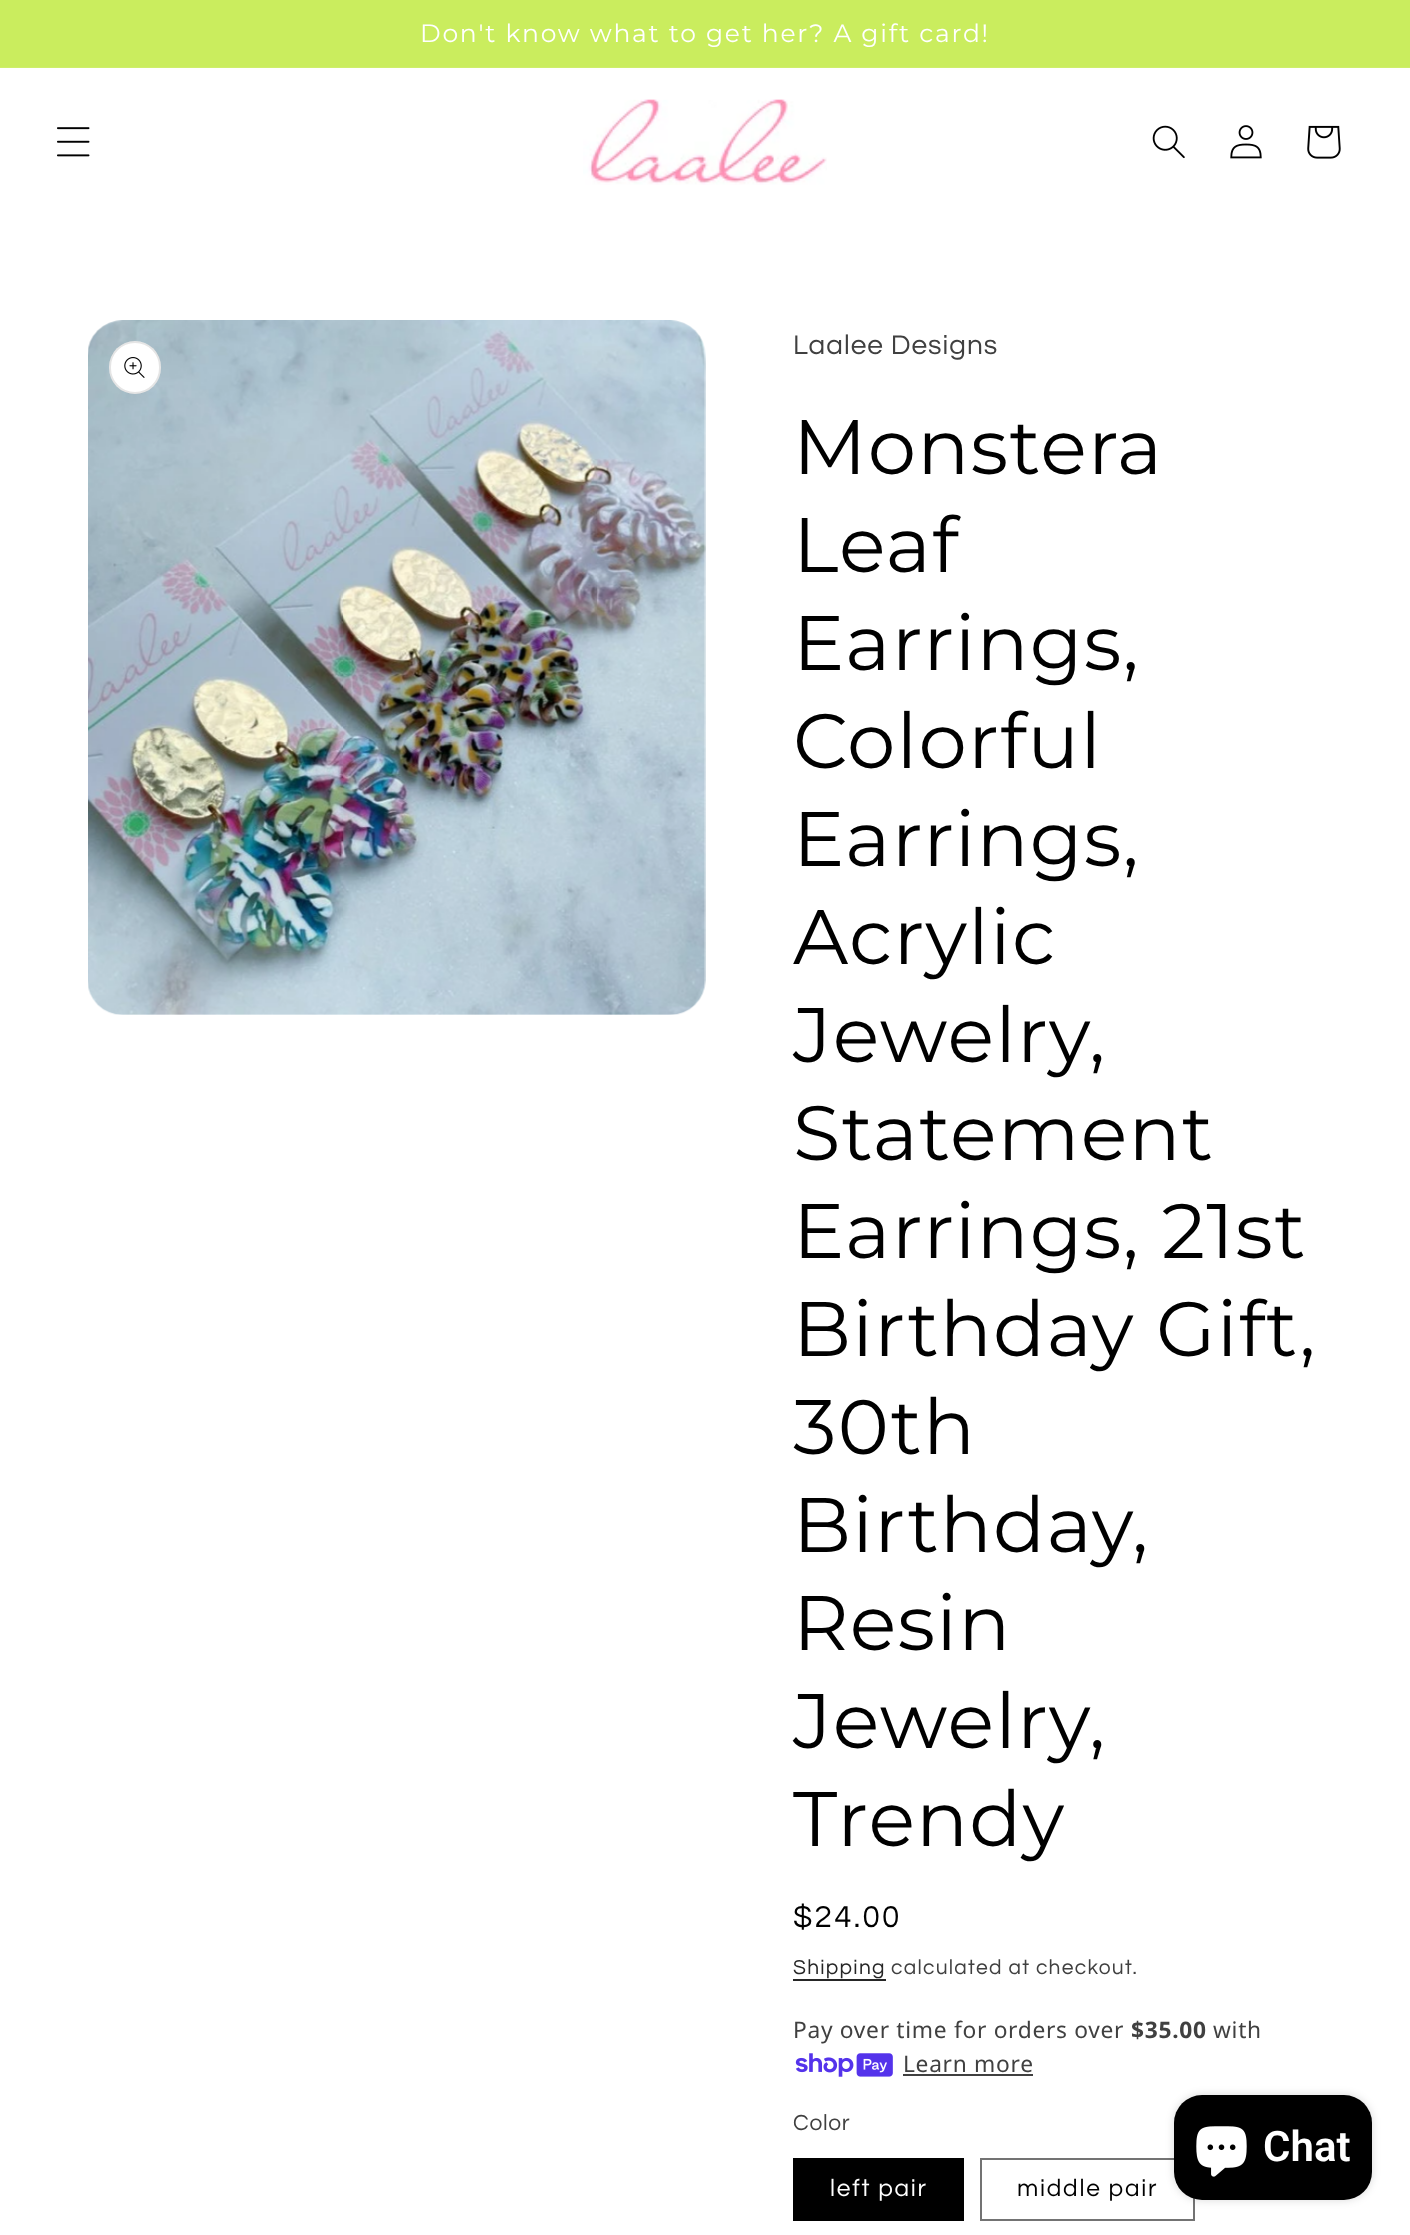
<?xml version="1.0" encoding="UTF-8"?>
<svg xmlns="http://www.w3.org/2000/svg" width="1410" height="2235">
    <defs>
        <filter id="blur1" x="-50%" y="-200%" width="200%" height="500%"><feGaussianBlur stdDeviation="4.5"/></filter>
    </defs>
    <rect width="100%" height="100%" fill="#FFFFFF"/>
    <rect x="0" y="0" width="1410" height="67" fill="#CAED5E"/>
    <rect x="0" y="67" width="1410" height="1" fill="#CEEE6B"/>
    <text x="420" y="42" font-family="Montserrat" font-size="25" letter-spacing="1.75" fill="#FFFFFF">Don't know what to get her? A gift card!</text>
    <image x="57" y="127" width="33" height="30" href="img_01.png"/>
    <image x="583" y="99" width="244" height="86" href="img_02.png"/>
    <image x="1152" y="125" width="33" height="34" href="img_03.png"/>
    <image x="1230" y="125" width="32" height="34" href="img_04.png"/>
    <image x="1307" y="125" width="34" height="34" href="img_05.png"/>
    <image x="88" y="320" width="618" height="695" href="img_06.png"/>
    <rect x="109" y="341" width="52" height="53" rx="26" fill="#FFFFFF"/>
    <rect x="110" y="342" width="50" height="51" rx="25" fill="none" stroke="#000000" stroke-opacity="0.1" stroke-width="2"/>
    <image x="124" y="357" width="21" height="21" href="img_07.png"/>
    <text x="793" y="354" font-family="Questrial" font-size="28" letter-spacing="1" fill="#404040">Laalee Designs</text>
    <text font-family="Montserrat" font-size="77" letter-spacing="1.2" fill="#000000">
        <tspan x="793" y="474">Monstera</tspan>
        <tspan x="793" y="572">Leaf</tspan>
        <tspan x="793" y="670">Earrings,</tspan>
        <tspan x="793" y="768">Colorful</tspan>
        <tspan x="793" y="866">Earrings,</tspan>
        <tspan x="793" y="964">Acrylic</tspan>
        <tspan x="793" y="1062">Jewelry,</tspan>
        <tspan x="793" y="1160">Statement</tspan>
        <tspan x="793" y="1258">Earrings, 21st</tspan>
        <tspan x="793" y="1356">Birthday Gift,</tspan>
        <tspan x="793" y="1454">30th</tspan>
        <tspan x="793" y="1552">Birthday,</tspan>
        <tspan x="793" y="1650">Resin</tspan>
        <tspan x="793" y="1748">Jewelry,</tspan>
        <tspan x="793" y="1846">Trendy</tspan>
    </text>
    <text x="793" y="1927" font-family="Questrial" font-size="31.5" letter-spacing="2.25" fill="#000000">$24.00</text>
    <text x="793" y="1974" font-family="Questrial" font-size="21" letter-spacing="1.25" fill="#262626">Shipping</text>
    <rect x="793" y="1979" width="93" height="2" fill="#262626"/>
    <text x="891" y="1974" font-family="Questrial" font-size="21" letter-spacing="1.25" fill="#404040">calculated at checkout.</text>
    <text x="793" y="2038" font-family="Noto Sans" font-size="22.75" letter-spacing="0.7" fill="#404040">Pay over time for orders over</text>
    <text x="1131" y="2038" font-family="Noto Sans" font-size="22.75" font-weight="700" letter-spacing="0.7" fill="#404040">$35.00</text>
    <text x="1213" y="2038" font-family="Noto Sans" font-size="22.75" letter-spacing="0.7" fill="#404040">with</text>
    <image x="795" y="2053" width="98" height="24" href="img_08.png"/>
    <text x="903" y="2072" font-family="Noto Sans" font-size="22.75" letter-spacing="0.7" fill="#404040">Learn more</text>
    <rect x="903" y="2074" width="130" height="2" fill="#404040"/>
    <text x="793" y="2130" font-family="Questrial" font-size="22.75" letter-spacing="0.7" fill="#404040">Color</text>
    <rect x="793" y="2158" width="171" height="63" fill="#000000"/>
    <text x="830" y="2196" font-family="Questrial" font-size="24.5" letter-spacing="1.75" fill="#FFFFFF">left pair</text>
    <rect x="981" y="2159" width="213" height="61" fill="none" stroke="#737373" stroke-width="2"/>
    <text x="1017" y="2196" font-family="Questrial" font-size="24.5" letter-spacing="1.75" fill="#000000">middle pair</text>
    <rect x="1174" y="2095" width="198" height="105" rx="28" fill="#000000" fill-opacity="0.15" filter="url(#blur1)"/>
    <rect x="1174" y="2095" width="198" height="105" rx="28" fill="#000000"/>
    <image x="1196" y="2126" width="51" height="51" href="img_09.png"/>
    <text x="1263" y="2161" font-family="Roboto" font-size="42" font-weight="600" fill="#FFFFFF">Chat</text>
</svg>
